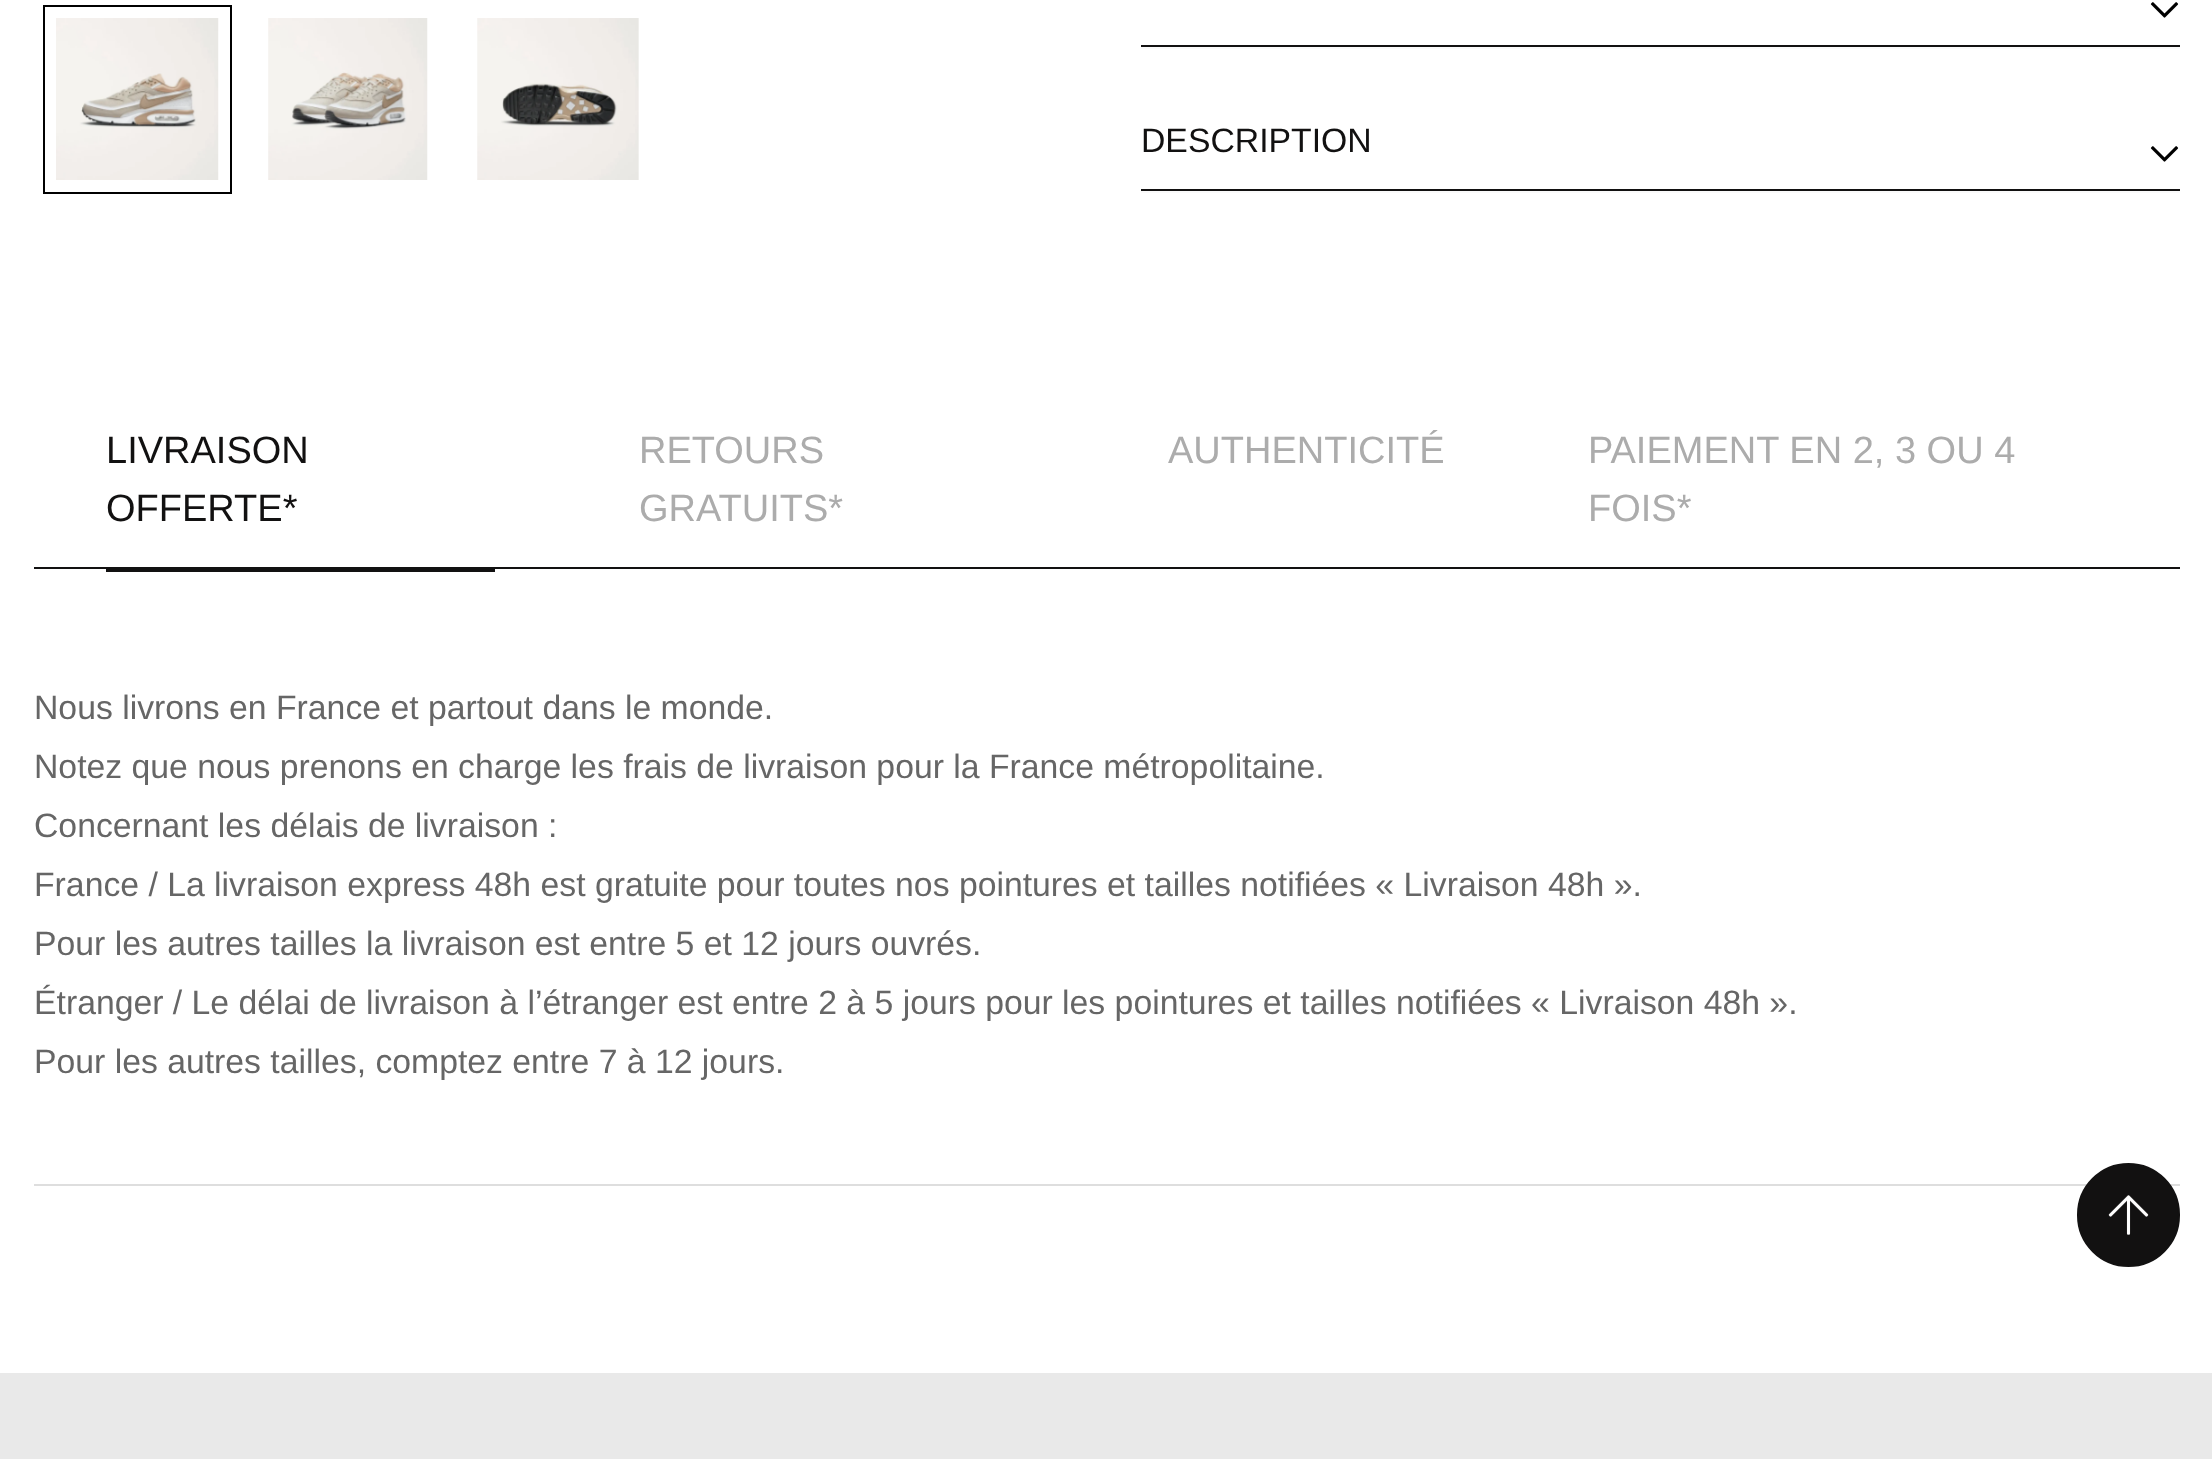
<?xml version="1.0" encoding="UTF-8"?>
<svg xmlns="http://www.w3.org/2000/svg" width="2212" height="1459">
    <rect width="100%" height="100%" fill="#FFFFFF"/>
    <rect x="44" y="6" width="187" height="187" fill="none" stroke="#000000" stroke-width="2"/>
    <image x="56" y="18" width="163" height="162" href="img_01.png"/>
    <image x="268" y="18" width="160" height="162" href="img_02.png"/>
    <image x="477" y="18" width="162" height="162" href="img_03.png"/>
    <rect x="1141" y="47" width="1039" height="2" fill="#FAFAFA"/>
    <rect x="1141" y="45" width="1039" height="2" fill="#121111"/>
    <image x="2150" y="2" width="29" height="16" href="img_04.png"/>
    <rect x="1141" y="191" width="1039" height="2" fill="#FAFAFA"/>
    <rect x="1141" y="189" width="1039" height="2" fill="#121111"/>
    <text x="1141" y="152" font-family="Liberation Sans" font-size="33.75" fill="#121111">DESCRIPTION</text>
    <image x="2150" y="146" width="29" height="16" href="img_04.png"/>
    <rect x="34" y="567" width="2146" height="2" fill="#121111"/>
    <text font-family="Liberation Sans" font-size="38" fill="#121111">
        <tspan x="106" y="463">LIVRAISON</tspan>
        <tspan x="106" y="521">OFFERTE*</tspan>
    </text>
    <rect x="106" y="569" width="389" height="3" fill="#121111"/>
    <text font-family="Liberation Sans" font-size="38" fill="#ACACAC">
        <tspan x="639" y="463">RETOURS</tspan>
        <tspan x="639" y="521">GRATUITS*</tspan>
    </text>
    <text x="1168" y="463" font-family="Liberation Sans" font-size="38" fill="#ACACAC">AUTHENTICITÉ</text>
    <text font-family="Liberation Sans" font-size="38" fill="#ACACAC">
        <tspan x="1588" y="463">PAIEMENT EN 2, 3 OU 4</tspan>
        <tspan x="1588" y="521">FOIS*</tspan>
    </text>
    <rect x="34" y="1184" width="2146" height="2" fill="#DEDEDE"/>
    <text font-family="Liberation Sans" font-size="33.75" fill="#666666">
        <tspan x="34" y="719">Nous livrons en France et partout dans le monde.</tspan>
        <tspan x="34" y="778">Notez que nous prenons en charge les frais de livraison pour la France métropolitaine.</tspan>
        <tspan x="34" y="837">Concernant les délais de livraison :</tspan>
        <tspan x="34" y="896">France / La livraison express 48h est gratuite pour toutes nos pointures et tailles notifiées « Livraison 48h ».</tspan>
        <tspan x="34" y="955">Pour les autres tailles la livraison est entre 5 et 12 jours ouvrés.</tspan>
        <tspan x="34" y="1014">Étranger / Le délai de livraison à l’étranger est entre 2 à 5 jours pour les pointures et tailles notifiées « Livraison 48h ».</tspan>
        <tspan x="34" y="1073">Pour les autres tailles, comptez entre 7 à 12 jours.</tspan>
    </text>
    <rect x="2078" y="1164" width="101" height="102" rx="50.5" fill="#121111" stroke="#121111" stroke-width="2"/>
    <image x="2108" y="1195" width="41" height="40" href="img_05.png"/>
    <rect x="0" y="1373" width="2212" height="86" fill="#E9E9E9"/>
</svg>
